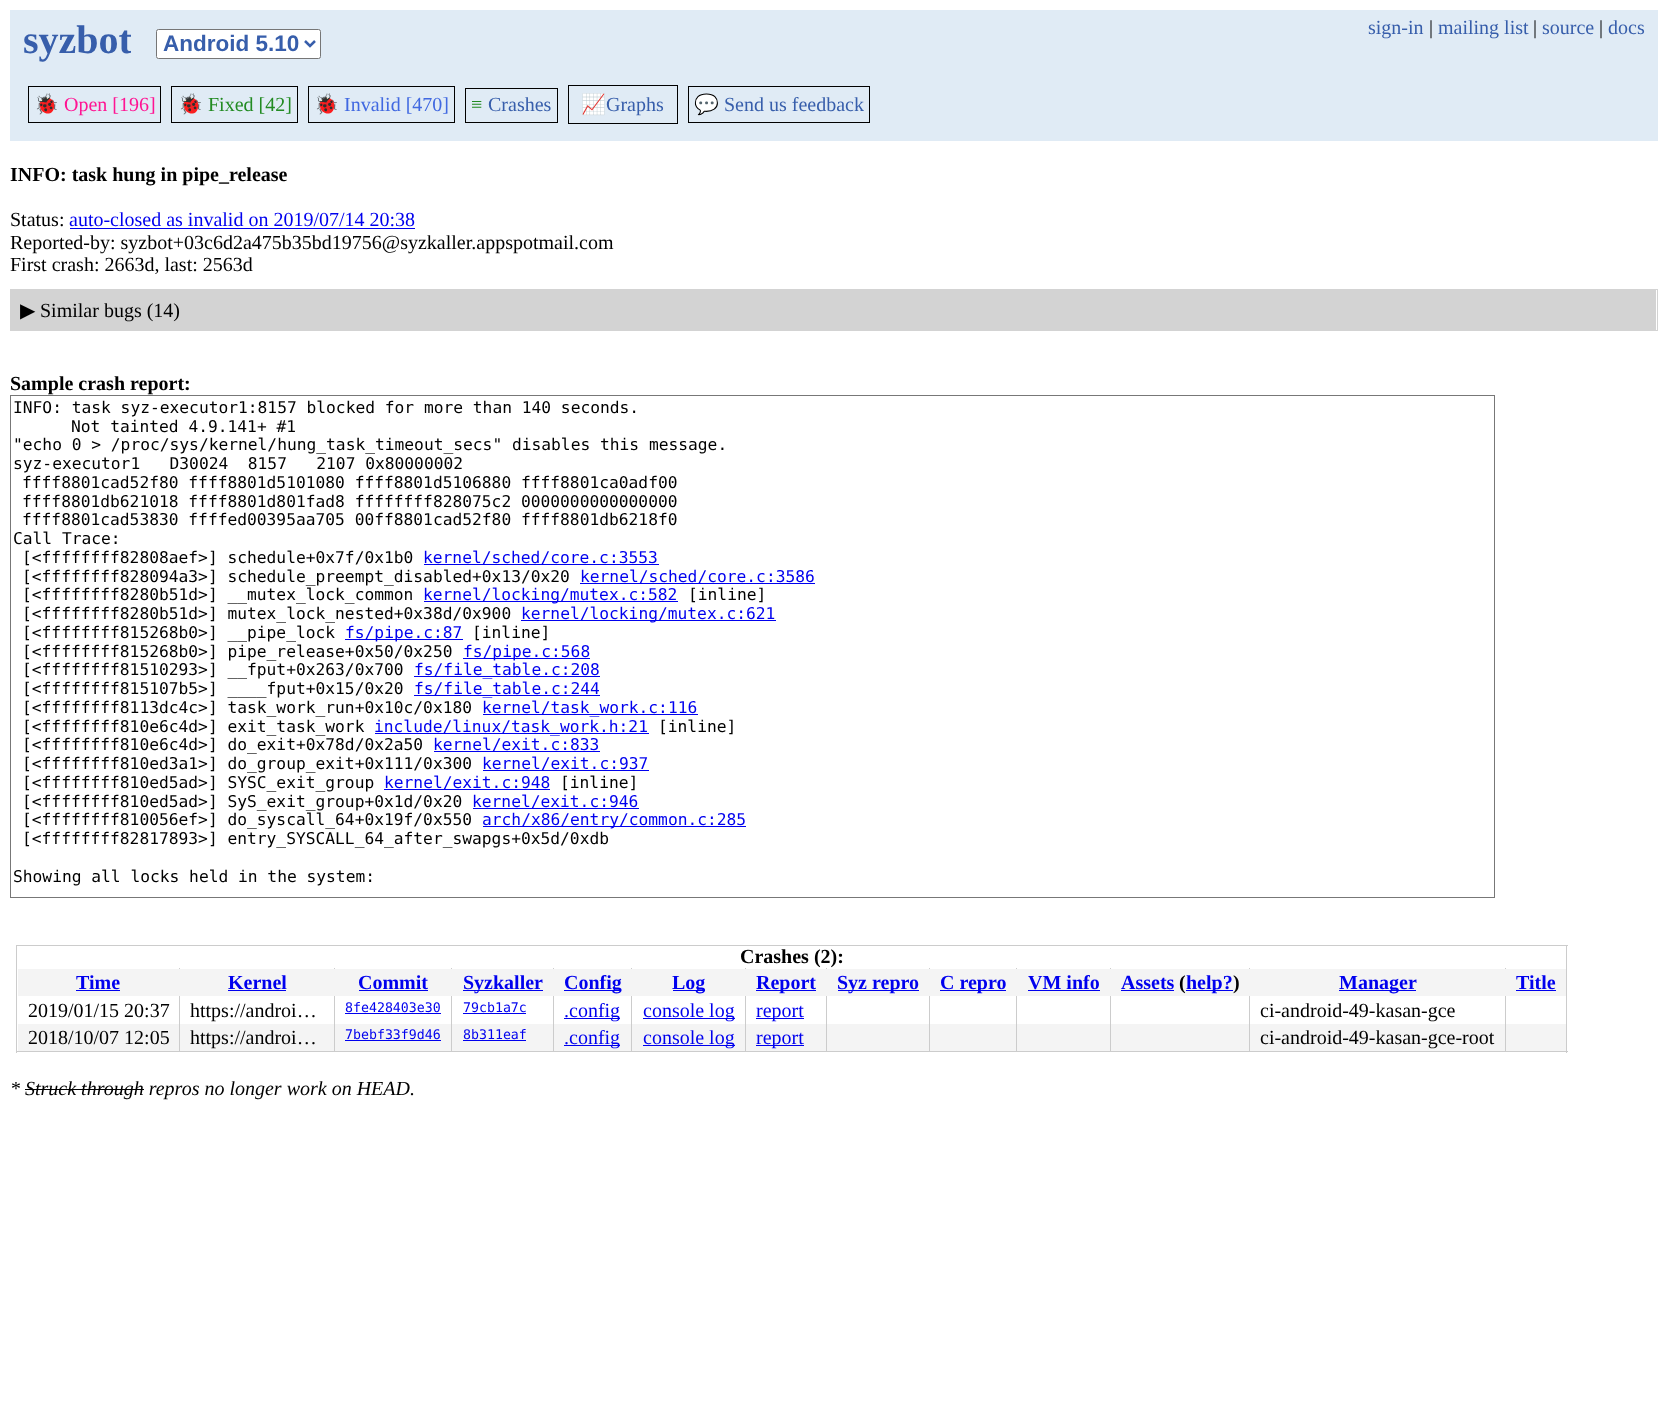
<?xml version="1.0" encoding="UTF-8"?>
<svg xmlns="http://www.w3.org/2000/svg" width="1667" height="1428">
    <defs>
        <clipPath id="clip1"><rect x="23" y="16" width="108" height="47"/></clipPath>
    </defs>
    <rect width="100%" height="100%" fill="#FFFFFF"/>
    <rect x="10" y="10" width="1648" height="131" fill="#E0EBF5"/>
    <g clip-path="url(#clip1)">
        <text x="23" y="53" font-family="Liberation Serif" font-size="40" font-weight="700" fill="#375EAB">syzbot</text>
    </g>
    <rect x="156.5" y="29.5" width="164" height="29" rx="2" fill="#FFFFFF" stroke="#767676"/>
    <path d="M 305 41 L 310 46 L 315 41" fill="none" stroke="#375EAB" stroke-width="2.5"/>
    <text x="163" y="51" font-family="Liberation Sans" font-size="22.5" font-weight="700" fill="#375EAB">Android 5.10</text>
    <text x="1368" y="34" font-family="Liberation Serif" font-size="20" fill="#375EAB">sign-in</text>
    <text x="1429" y="34" font-family="Liberation Serif" font-size="20" fill="#000000">|</text>
    <text x="1438" y="34" font-family="Liberation Serif" font-size="20" fill="#375EAB">mailing list</text>
    <text x="1533" y="34" font-family="Liberation Serif" font-size="20" fill="#000000">|</text>
    <text x="1542" y="34" font-family="Liberation Serif" font-size="20" fill="#375EAB">source</text>
    <text x="1599" y="34" font-family="Liberation Serif" font-size="20" fill="#000000">|</text>
    <text x="1608" y="34" font-family="Liberation Serif" font-size="20" fill="#375EAB">docs</text>
    <rect x="28.5" y="86.5" width="132" height="36" fill="none" stroke="#000000"/>
    <text x="34" y="111" font-family="Noto Color Emoji" font-size="20" fill="#FF1493">🐞</text>
    <text x="64" y="111" font-family="Liberation Serif" font-size="20" fill="#FF1493">Open [196]</text>
    <rect x="171.5" y="86.5" width="126" height="36" fill="none" stroke="#000000"/>
    <text x="178" y="111" font-family="Noto Color Emoji" font-size="20" fill="#228B22">🐞</text>
    <text x="208" y="111" font-family="Liberation Serif" font-size="20" fill="#228B22">Fixed [42]</text>
    <rect x="308.5" y="86.5" width="146" height="36" fill="none" stroke="#000000"/>
    <text x="314" y="111" font-family="Noto Color Emoji" font-size="20" fill="#4169E1">🐞</text>
    <text x="344" y="111" font-family="Liberation Serif" font-size="20" fill="#4169E1">Invalid [470]</text>
    <rect x="465.5" y="88.5" width="92" height="34" fill="none" stroke="#000000"/>
    <text x="471" y="111" font-family="Liberation Serif" font-size="20" fill="#228B22">≡</text>
    <text x="488" y="111" font-family="Liberation Serif" font-size="20" fill="#375EAB">Crashes</text>
    <rect x="568.5" y="85.5" width="109" height="38" fill="none" stroke="#000000"/>
    <text x="581" y="111" font-family="Noto Color Emoji" font-size="20" fill="#FF8C00">📈</text>
    <text x="606" y="111" font-family="Liberation Serif" font-size="20" fill="#375EAB">Graphs</text>
    <rect x="688.5" y="86.5" width="181" height="36" fill="none" stroke="#000000"/>
    <text x="694" y="111" font-family="Noto Color Emoji" font-size="20" fill="#228B22">💬</text>
    <text x="724" y="111" font-family="Liberation Serif" font-size="20" fill="#375EAB">Send us feedback</text>
    <text x="10" y="181" font-family="Liberation Serif" font-size="20" font-weight="700" fill="#000000">INFO: task hung in pipe_release</text>
    <text x="10" y="226" font-family="Liberation Serif" font-size="20" fill="#000000">Status:</text>
    <text x="69" y="226" font-family="Liberation Serif" font-size="20" fill="#0000EE">auto-closed as invalid on 2019/07/14 20:38</text>
    <rect x="70" y="228" width="345" height="1" fill="#0000EE"/>
    <text font-family="Liberation Serif" font-size="20" fill="#000000">
        <tspan x="10" y="249">Reported-by: syzbot+03c6d2a475b35bd19756@syzkaller.appspotmail.com</tspan>
        <tspan x="10" y="271">First crash: 2663d, last: 2563d</tspan>
    </text>
    <rect x="10.5" y="289.5" width="1647" height="41" fill="none" stroke="#D3D3D3"/>
    <rect x="11" y="290" width="1645" height="40" fill="#D3D3D3"/>
    <text x="20" y="317" font-family="DejaVu Sans" font-size="20" fill="#000000">▶</text>
    <text x="40" y="317" font-family="Liberation Serif" font-size="20" fill="#000000">Similar bugs (14)</text>
    <text x="10" y="390" font-family="Liberation Serif" font-size="20" font-weight="700" fill="#000000">Sample crash report:</text>
    <rect x="10.5" y="395.5" width="1484" height="502" fill="none" stroke="#777777"/>
    <text x="13" y="413" font-family="DejaVu Sans Mono" font-size="16.25" fill="#000000">INFO: task syz-executor1:8157 blocked for more than 140 seconds.</text>
    <text x="71" y="432" font-family="DejaVu Sans Mono" font-size="16.25" fill="#000000">Not tainted 4.9.141+ #1</text>
    <text font-family="DejaVu Sans Mono" font-size="16.25" fill="#000000" xml:space="preserve"><tspan x="13" y="450">"echo 0 &gt; /proc/sys/kernel/hung_task_timeout_secs" disables this message.</tspan><tspan x="13" y="469">syz-executor1   D30024  8157   2107 0x80000002</tspan></text>
    <text font-family="DejaVu Sans Mono" font-size="16.25" fill="#000000">
        <tspan x="22" y="488">ffff8801cad52f80 ffff8801d5101080 ffff8801d5106880 ffff8801ca0adf00</tspan>
        <tspan x="22" y="507">ffff8801db621018 ffff8801d801fad8 ffffffff828075c2 0000000000000000</tspan>
        <tspan x="22" y="525">ffff8801cad53830 ffffed00395aa705 00ff8801cad52f80 ffff8801db6218f0</tspan>
    </text>
    <text x="13" y="544" font-family="DejaVu Sans Mono" font-size="16.25" fill="#000000">Call Trace:</text>
    <text x="22" y="563" font-family="DejaVu Sans Mono" font-size="16.25" fill="#000000">[&lt;ffffffff82808aef&gt;] schedule+0x7f/0x1b0</text>
    <rect x="424" y="564" width="235" height="1" fill="#0000EE"/>
    <text x="423" y="563" font-family="DejaVu Sans Mono" font-size="16.25" fill="#0000EE">kernel/sched/core.c:3553</text>
    <text x="22" y="582" font-family="DejaVu Sans Mono" font-size="16.25" fill="#000000">[&lt;ffffffff828094a3&gt;] schedule_preempt_disabled+0x13/0x20</text>
    <rect x="580" y="583" width="235" height="1" fill="#0000EE"/>
    <text x="580" y="582" font-family="DejaVu Sans Mono" font-size="16.25" fill="#0000EE">kernel/sched/core.c:3586</text>
    <text x="22" y="600" font-family="DejaVu Sans Mono" font-size="16.25" fill="#000000">[&lt;ffffffff8280b51d&gt;] __mutex_lock_common</text>
    <rect x="424" y="601" width="254" height="1" fill="#0000EE"/>
    <text x="423" y="600" font-family="DejaVu Sans Mono" font-size="16.25" fill="#0000EE">kernel/locking/mutex.c:582</text>
    <text x="688" y="600" font-family="DejaVu Sans Mono" font-size="16.25" fill="#000000">[inline]</text>
    <text x="22" y="619" font-family="DejaVu Sans Mono" font-size="16.25" fill="#000000">[&lt;ffffffff8280b51d&gt;] mutex_lock_nested+0x38d/0x900</text>
    <rect x="521" y="620" width="255" height="1" fill="#0000EE"/>
    <text x="521" y="619" font-family="DejaVu Sans Mono" font-size="16.25" fill="#0000EE">kernel/locking/mutex.c:621</text>
    <text x="22" y="638" font-family="DejaVu Sans Mono" font-size="16.25" fill="#000000">[&lt;ffffffff815268b0&gt;] __pipe_lock</text>
    <rect x="345" y="639" width="118" height="1" fill="#0000EE"/>
    <text x="345" y="638" font-family="DejaVu Sans Mono" font-size="16.25" fill="#0000EE">fs/pipe.c:87</text>
    <text x="472" y="638" font-family="DejaVu Sans Mono" font-size="16.25" fill="#000000">[inline]</text>
    <text x="22" y="657" font-family="DejaVu Sans Mono" font-size="16.25" fill="#000000">[&lt;ffffffff815268b0&gt;] pipe_release+0x50/0x250</text>
    <rect x="463" y="658" width="127" height="1" fill="#0000EE"/>
    <text x="463" y="657" font-family="DejaVu Sans Mono" font-size="16.25" fill="#0000EE">fs/pipe.c:568</text>
    <text x="22" y="675" font-family="DejaVu Sans Mono" font-size="16.25" fill="#000000">[&lt;ffffffff81510293&gt;] __fput+0x263/0x700</text>
    <rect x="414" y="676" width="186" height="1" fill="#0000EE"/>
    <text x="414" y="675" font-family="DejaVu Sans Mono" font-size="16.25" fill="#0000EE">fs/file_table.c:208</text>
    <text x="22" y="694" font-family="DejaVu Sans Mono" font-size="16.25" fill="#000000">[&lt;ffffffff815107b5&gt;] ____fput+0x15/0x20</text>
    <rect x="414" y="695" width="186" height="1" fill="#0000EE"/>
    <text x="414" y="694" font-family="DejaVu Sans Mono" font-size="16.25" fill="#0000EE">fs/file_table.c:244</text>
    <text x="22" y="713" font-family="DejaVu Sans Mono" font-size="16.25" fill="#000000">[&lt;ffffffff8113dc4c&gt;] task_work_run+0x10c/0x180</text>
    <rect x="483" y="714" width="215" height="1" fill="#0000EE"/>
    <text x="482" y="713" font-family="DejaVu Sans Mono" font-size="16.25" fill="#0000EE">kernel/task_work.c:116</text>
    <text x="22" y="732" font-family="DejaVu Sans Mono" font-size="16.25" fill="#000000">[&lt;ffffffff810e6c4d&gt;] exit_task_work</text>
    <rect x="375" y="733" width="274" height="1" fill="#0000EE"/>
    <text x="374" y="732" font-family="DejaVu Sans Mono" font-size="16.25" fill="#0000EE">include/linux/task_work.h:21</text>
    <text x="658" y="732" font-family="DejaVu Sans Mono" font-size="16.25" fill="#000000">[inline]</text>
    <text x="22" y="750" font-family="DejaVu Sans Mono" font-size="16.25" fill="#000000">[&lt;ffffffff810e6c4d&gt;] do_exit+0x78d/0x2a50</text>
    <rect x="434" y="751" width="166" height="1" fill="#0000EE"/>
    <text x="433" y="750" font-family="DejaVu Sans Mono" font-size="16.25" fill="#0000EE">kernel/exit.c:833</text>
    <text x="22" y="769" font-family="DejaVu Sans Mono" font-size="16.25" fill="#000000">[&lt;ffffffff810ed3a1&gt;] do_group_exit+0x111/0x300</text>
    <rect x="483" y="770" width="166" height="1" fill="#0000EE"/>
    <text x="482" y="769" font-family="DejaVu Sans Mono" font-size="16.25" fill="#0000EE">kernel/exit.c:937</text>
    <text x="22" y="788" font-family="DejaVu Sans Mono" font-size="16.25" fill="#000000">[&lt;ffffffff810ed5ad&gt;] SYSC_exit_group</text>
    <rect x="384" y="789" width="166" height="1" fill="#0000EE"/>
    <text x="384" y="788" font-family="DejaVu Sans Mono" font-size="16.25" fill="#0000EE">kernel/exit.c:948</text>
    <text x="560" y="788" font-family="DejaVu Sans Mono" font-size="16.25" fill="#000000">[inline]</text>
    <text x="22" y="807" font-family="DejaVu Sans Mono" font-size="16.25" fill="#000000">[&lt;ffffffff810ed5ad&gt;] SyS_exit_group+0x1d/0x20</text>
    <rect x="473" y="808" width="166" height="1" fill="#0000EE"/>
    <text x="472" y="807" font-family="DejaVu Sans Mono" font-size="16.25" fill="#0000EE">kernel/exit.c:946</text>
    <text x="22" y="825" font-family="DejaVu Sans Mono" font-size="16.25" fill="#000000">[&lt;ffffffff810056ef&gt;] do_syscall_64+0x19f/0x550</text>
    <rect x="483" y="826" width="263" height="1" fill="#0000EE"/>
    <text x="482" y="825" font-family="DejaVu Sans Mono" font-size="16.25" fill="#0000EE">arch/x86/entry/common.c:285</text>
    <text x="22" y="844" font-family="DejaVu Sans Mono" font-size="16.25" fill="#000000">[&lt;ffffffff82817893&gt;] entry_SYSCALL_64_after_swapgs+0x5d/0xdb</text>
    <text x="13" y="882" font-family="DejaVu Sans Mono" font-size="16.25" fill="#000000">Showing all locks held in the system:</text>
    <rect x="16" y="945" width="1552" height="1" fill="#CCCCCC"/>
    <rect x="1566" y="945" width="1" height="108" fill="#CCCCCC"/>
    <rect x="16" y="1051" width="1552" height="1" fill="#CCCCCC"/>
    <rect x="16" y="945" width="1" height="108" fill="#CCCCCC"/>
    <text x="740" y="963" font-family="Liberation Serif" font-size="20" font-weight="700" fill="#000000">Crashes (2):</text>
    <rect x="18" y="1024" width="1548" height="27" fill="#F4F4F4"/>
    <rect x="179" y="968" width="1" height="83" fill="#CCCCCC"/>
    <rect x="334" y="968" width="1" height="83" fill="#CCCCCC"/>
    <rect x="451" y="968" width="1" height="83" fill="#CCCCCC"/>
    <rect x="553" y="968" width="1" height="83" fill="#CCCCCC"/>
    <rect x="631" y="968" width="1" height="83" fill="#CCCCCC"/>
    <rect x="745" y="968" width="1" height="83" fill="#CCCCCC"/>
    <rect x="826" y="968" width="1" height="83" fill="#CCCCCC"/>
    <rect x="929" y="968" width="1" height="83" fill="#CCCCCC"/>
    <rect x="1016" y="968" width="1" height="83" fill="#CCCCCC"/>
    <rect x="1110" y="968" width="1" height="83" fill="#CCCCCC"/>
    <rect x="1249" y="968" width="1" height="83" fill="#CCCCCC"/>
    <rect x="1505" y="968" width="1" height="83" fill="#CCCCCC"/>
    <rect x="18" y="969" width="1548" height="27" fill="#F4F4F4"/>
    <text x="76" y="989" font-family="Liberation Serif" font-size="20" font-weight="700" fill="#0000EE">Time</text>
    <rect x="76" y="990" width="44" height="1" fill="#0000EE"/>
    <text x="228" y="989" font-family="Liberation Serif" font-size="20" font-weight="700" fill="#0000EE">Kernel</text>
    <rect x="228" y="990" width="58" height="1" fill="#0000EE"/>
    <text x="358" y="989" font-family="Liberation Serif" font-size="20" font-weight="700" fill="#0000EE">Commit</text>
    <rect x="359" y="990" width="69" height="1" fill="#0000EE"/>
    <rect x="463" y="990" width="80" height="1" fill="#0000EE"/>
    <text x="463" y="989" font-family="Liberation Serif" font-size="20" font-weight="700" fill="#0000EE">Syzkaller</text>
    <rect x="564" y="990" width="57" height="1" fill="#0000EE"/>
    <text x="564" y="989" font-family="Liberation Serif" font-size="20" font-weight="700" fill="#0000EE">Config</text>
    <rect x="673" y="990" width="32" height="1" fill="#0000EE"/>
    <text x="672" y="989" font-family="Liberation Serif" font-size="20" font-weight="700" fill="#0000EE">Log</text>
    <rect x="756" y="990" width="60" height="1" fill="#0000EE"/>
    <text x="756" y="989" font-family="Liberation Serif" font-size="20" font-weight="700" fill="#0000EE">Report</text>
    <rect x="838" y="990" width="81" height="1" fill="#0000EE"/>
    <text x="837" y="989" font-family="Liberation Serif" font-size="20" font-weight="700" fill="#0000EE">Syz repro</text>
    <rect x="940" y="990" width="66" height="1" fill="#0000EE"/>
    <text x="940" y="989" font-family="Liberation Serif" font-size="20" font-weight="700" fill="#0000EE">C repro</text>
    <text x="1028" y="989" font-family="Liberation Serif" font-size="20" font-weight="700" fill="#0000EE">VM info</text>
    <rect x="1028" y="990" width="72" height="1" fill="#0000EE"/>
    <text x="1121" y="989" font-family="Liberation Serif" font-size="20" font-weight="700" fill="#0000EE">Assets</text>
    <rect x="1121" y="990" width="53" height="1" fill="#0000EE"/>
    <text x="1179" y="989" font-family="Liberation Serif" font-size="20" font-weight="700" fill="#000000">(</text>
    <rect x="1186" y="990" width="47" height="1" fill="#0000EE"/>
    <text x="1186" y="989" font-family="Liberation Serif" font-size="20" font-weight="700" fill="#0000EE">help?</text>
    <text x="1233" y="989" font-family="Liberation Serif" font-size="20" font-weight="700" fill="#000000">)</text>
    <rect x="1339" y="990" width="77" height="1" fill="#0000EE"/>
    <text x="1339" y="989" font-family="Liberation Serif" font-size="20" font-weight="700" fill="#0000EE">Manager</text>
    <text x="1516" y="989" font-family="Liberation Serif" font-size="20" font-weight="700" fill="#0000EE">Title</text>
    <rect x="1516" y="990" width="40" height="1" fill="#0000EE"/>
    <text x="28" y="1017" font-family="Liberation Serif" font-size="20" fill="#000000">2019/01/15 20:37</text>
    <text x="190" y="1017" font-family="Liberation Serif" font-size="20" fill="#000000">https://androi…</text>
    <text x="345" y="1012" font-family="DejaVu Sans Mono" font-size="13.25" fill="#0000EE">8fe428403e30</text>
    <rect x="345" y="1013" width="96" height="1" fill="#0000EE"/>
    <text x="463" y="1012" font-family="DejaVu Sans Mono" font-size="13.25" fill="#0000EE">79cb1a7c</text>
    <rect x="463" y="1013" width="63" height="1" fill="#0000EE"/>
    <rect x="564" y="1018" width="56" height="1" fill="#0000EE"/>
    <text x="564" y="1017" font-family="Liberation Serif" font-size="20" fill="#0000EE">.config</text>
    <rect x="643" y="1018" width="92" height="1" fill="#0000EE"/>
    <text x="643" y="1017" font-family="Liberation Serif" font-size="20" fill="#0000EE">console log</text>
    <rect x="756" y="1018" width="48" height="1" fill="#0000EE"/>
    <text x="756" y="1017" font-family="Liberation Serif" font-size="20" fill="#0000EE">report</text>
    <text x="1260" y="1017" font-family="Liberation Serif" font-size="20" fill="#000000">ci-android-49-kasan-gce</text>
    <text x="28" y="1044" font-family="Liberation Serif" font-size="20" fill="#000000">2018/10/07 12:05</text>
    <text x="190" y="1044" font-family="Liberation Serif" font-size="20" fill="#000000">https://androi…</text>
    <text x="345" y="1039" font-family="DejaVu Sans Mono" font-size="13.25" fill="#0000EE">7bebf33f9d46</text>
    <rect x="345" y="1040" width="96" height="1" fill="#0000EE"/>
    <text x="463" y="1039" font-family="DejaVu Sans Mono" font-size="13.25" fill="#0000EE">8b311eaf</text>
    <rect x="463" y="1040" width="63" height="1" fill="#0000EE"/>
    <rect x="564" y="1045" width="56" height="1" fill="#0000EE"/>
    <text x="564" y="1044" font-family="Liberation Serif" font-size="20" fill="#0000EE">.config</text>
    <rect x="643" y="1045" width="92" height="1" fill="#0000EE"/>
    <text x="643" y="1044" font-family="Liberation Serif" font-size="20" fill="#0000EE">console log</text>
    <rect x="756" y="1045" width="48" height="1" fill="#0000EE"/>
    <text x="756" y="1044" font-family="Liberation Serif" font-size="20" fill="#0000EE">report</text>
    <text x="1260" y="1044" font-family="Liberation Serif" font-size="20" fill="#000000">ci-android-49-kasan-gce-root</text>
    <text x="10" y="1095" font-family="Liberation Serif" font-size="20" font-style="italic" fill="#000000">* Struck through repros no longer work on HEAD.</text>
    <rect x="25" y="1089" width="119" height="1" fill="#000000"/>
</svg>
